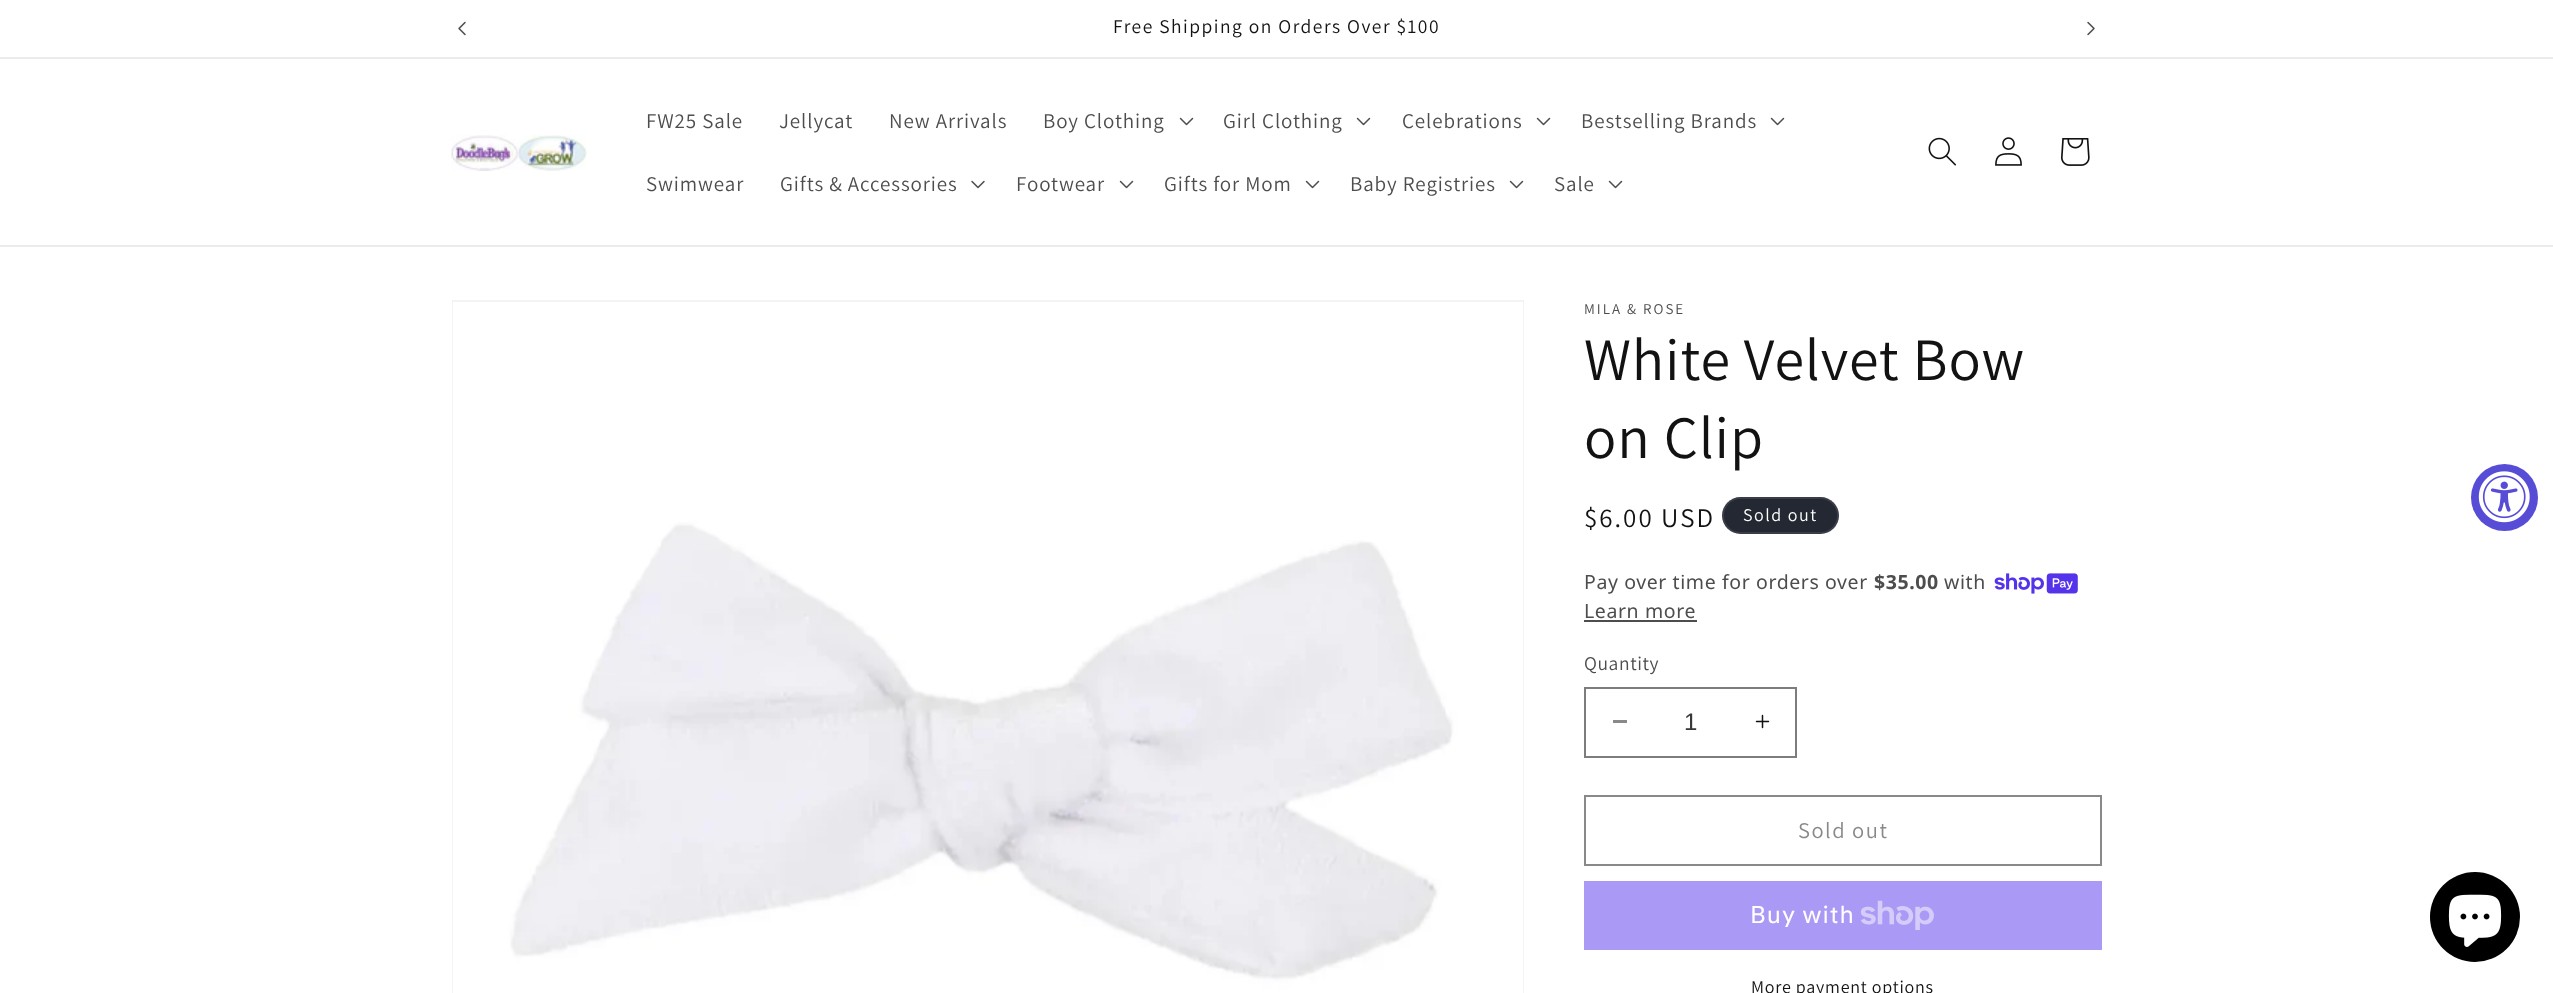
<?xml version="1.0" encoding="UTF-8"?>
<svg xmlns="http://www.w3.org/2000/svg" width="2553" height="993">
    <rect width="100%" height="100%" fill="#FFFFFF"/>
    <rect x="0" y="57" width="2553" height="2" fill="#ECECEC"/>
    <image x="458" y="21" width="8" height="15" href="img_01.png"/>
    <text x="1113" y="33" font-family="Assistant" font-size="19.5" letter-spacing="1.5" fill="#121212">Free Shipping on Orders Over $100</text>
    <image x="2087" y="21" width="8" height="15" href="img_02.png"/>
    <rect x="0" y="245" width="2553" height="2" fill="#ECECEC"/>
    <image x="451" y="135" width="136" height="36" href="img_03.png"/>
    <text x="646" y="128" font-family="Assistant" font-size="21" letter-spacing="0.9" fill="#4D4D4D">FW25 Sale</text>
    <text x="779" y="128" font-family="Assistant" font-size="21" letter-spacing="0.9" fill="#4D4D4D">Jellycat</text>
    <text x="889" y="128" font-family="Assistant" font-size="21" letter-spacing="0.9" fill="#4D4D4D">New Arrivals</text>
    <text x="1043" y="128" font-family="Assistant" font-size="21" letter-spacing="0.9" fill="#4D4D4D">Boy Clothing</text>
    <image x="1179" y="117" width="15" height="9" href="img_04.png"/>
    <text x="1223" y="128" font-family="Assistant" font-size="21" letter-spacing="0.9" fill="#4D4D4D">Girl Clothing</text>
    <image x="1356" y="117" width="15" height="9" href="img_04.png"/>
    <text x="1402" y="128" font-family="Assistant" font-size="21" letter-spacing="0.9" fill="#4D4D4D">Celebrations</text>
    <image x="1536" y="117" width="15" height="9" href="img_04.png"/>
    <text x="1581" y="128" font-family="Assistant" font-size="21" letter-spacing="0.9" fill="#4D4D4D">Bestselling Brands</text>
    <image x="1770" y="117" width="15" height="9" href="img_04.png"/>
    <text x="646" y="191" font-family="Assistant" font-size="21" letter-spacing="0.9" fill="#4D4D4D">Swimwear</text>
    <text x="780" y="191" font-family="Assistant" font-size="21" letter-spacing="0.9" fill="#4D4D4D">Gifts &amp; Accessories</text>
    <image x="971" y="180" width="14" height="9" href="img_05.png"/>
    <text x="1016" y="191" font-family="Assistant" font-size="21" letter-spacing="0.9" fill="#4D4D4D">Footwear</text>
    <image x="1119" y="180" width="15" height="9" href="img_04.png"/>
    <text x="1164" y="191" font-family="Assistant" font-size="21" letter-spacing="0.9" fill="#4D4D4D">Gifts for Mom</text>
    <image x="1305" y="180" width="15" height="9" href="img_04.png"/>
    <text x="1350" y="191" font-family="Assistant" font-size="21" letter-spacing="0.9" fill="#4D4D4D">Baby Registries</text>
    <image x="1509" y="180" width="15" height="9" href="img_04.png"/>
    <text x="1554" y="191" font-family="Assistant" font-size="21" letter-spacing="0.9" fill="#4D4D4D">Sale</text>
    <image x="1608" y="180" width="15" height="9" href="img_04.png"/>
    <image x="1928" y="137" width="28" height="29" href="img_06.png"/>
    <image x="1995" y="137" width="27" height="29" href="img_07.png"/>
    <image x="2061" y="138" width="29" height="28" href="img_08.png"/>
    <rect x="453" y="301" width="1070" height="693" fill="none" stroke="#F3F3F3" stroke-width="2"/>
    <image x="453" y="302" width="1070" height="691" href="img_09.png"/>
    <text x="1584" y="314" font-family="Assistant" font-size="15" letter-spacing="2" fill="#4D4D4D">MILA &amp; ROSE</text>
    <text font-family="Assistant" font-size="60" letter-spacing="0.9" fill="#121212">
        <tspan x="1584" y="380">White Velvet Bow</tspan>
        <tspan x="1584" y="458">on Clip</tspan>
    </text>
    <text x="1584" y="527" font-family="Assistant" font-size="27" letter-spacing="2" fill="#121212">$6.00 USD</text>
    <rect x="1722" y="497" width="117" height="37" rx="18.5" fill="#242833"/>
    <rect x="1723" y="498" width="115" height="35" rx="17.5" fill="none" stroke="#FFFFFF" stroke-opacity="0.1" stroke-width="2"/>
    <text x="1743" y="521" font-family="Assistant" font-size="18" letter-spacing="1.5" fill="#FFFFFF">Sold out</text>
    <text x="1584" y="589" font-family="Noto Sans" font-size="19.5" letter-spacing="0.6" fill="#4D4D4D">Pay over time for orders over</text>
    <text x="1874" y="589" font-family="Noto Sans" font-size="19.5" font-weight="700" letter-spacing="0.6" fill="#4D4D4D">$35.00</text>
    <text x="1944" y="589" font-family="Noto Sans" font-size="19.5" letter-spacing="0.6" fill="#4D4D4D">with</text>
    <image x="1994" y="573" width="84" height="21" href="img_10.png"/>
    <text x="1584" y="618" font-family="Noto Sans" font-size="19.5" letter-spacing="0.6" fill="#4D4D4D">Learn more</text>
    <rect x="1584" y="620" width="113" height="2" fill="#4D4D4D"/>
    <text x="1584" y="670" font-family="Assistant" font-size="19.5" letter-spacing="0.6" fill="#4D4D4D">Quantity</text>
    <rect x="1613" y="720" width="14" height="3" fill="#898989"/>
    <image x="1755" y="714" width="15" height="15" href="img_11.png"/>
    <rect x="1585" y="688" width="211" height="69" fill="none" stroke="#7D7D7D" stroke-width="2"/>
    <text x="1684" y="730" font-family="Liberation Sans" font-size="24" fill="#363636">1</text>
    <rect x="1585" y="796" width="516" height="69" fill="none" stroke="#898989" stroke-width="2"/>
    <text x="1798" y="838" font-family="Assistant" font-size="22.5" letter-spacing="1.5" fill="#898989">Sold out</text>
    <rect x="1584" y="881" width="518" height="69" fill="#AA99F5"/>
    <text x="1750" y="923" font-family="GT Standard" font-size="24" letter-spacing="0.9" fill="#FFFFFF">Buy with</text>
    <image x="1860" y="900" width="74" height="30" href="img_12.png"/>
    <text x="1751" y="993" font-family="Assistant" font-size="18" letter-spacing="0.75" fill="#121212">More payment options</text>
    <circle cx="2504.5" cy="497.5" r="33.5" fill="#574CD5"/>
    <image x="2478" y="471" width="52" height="52" href="img_13.png"/>
    <circle cx="2475" cy="917" r="45" fill="#000000"/>
    <image x="2448" y="894" width="54" height="53" href="img_14.png"/>
</svg>
